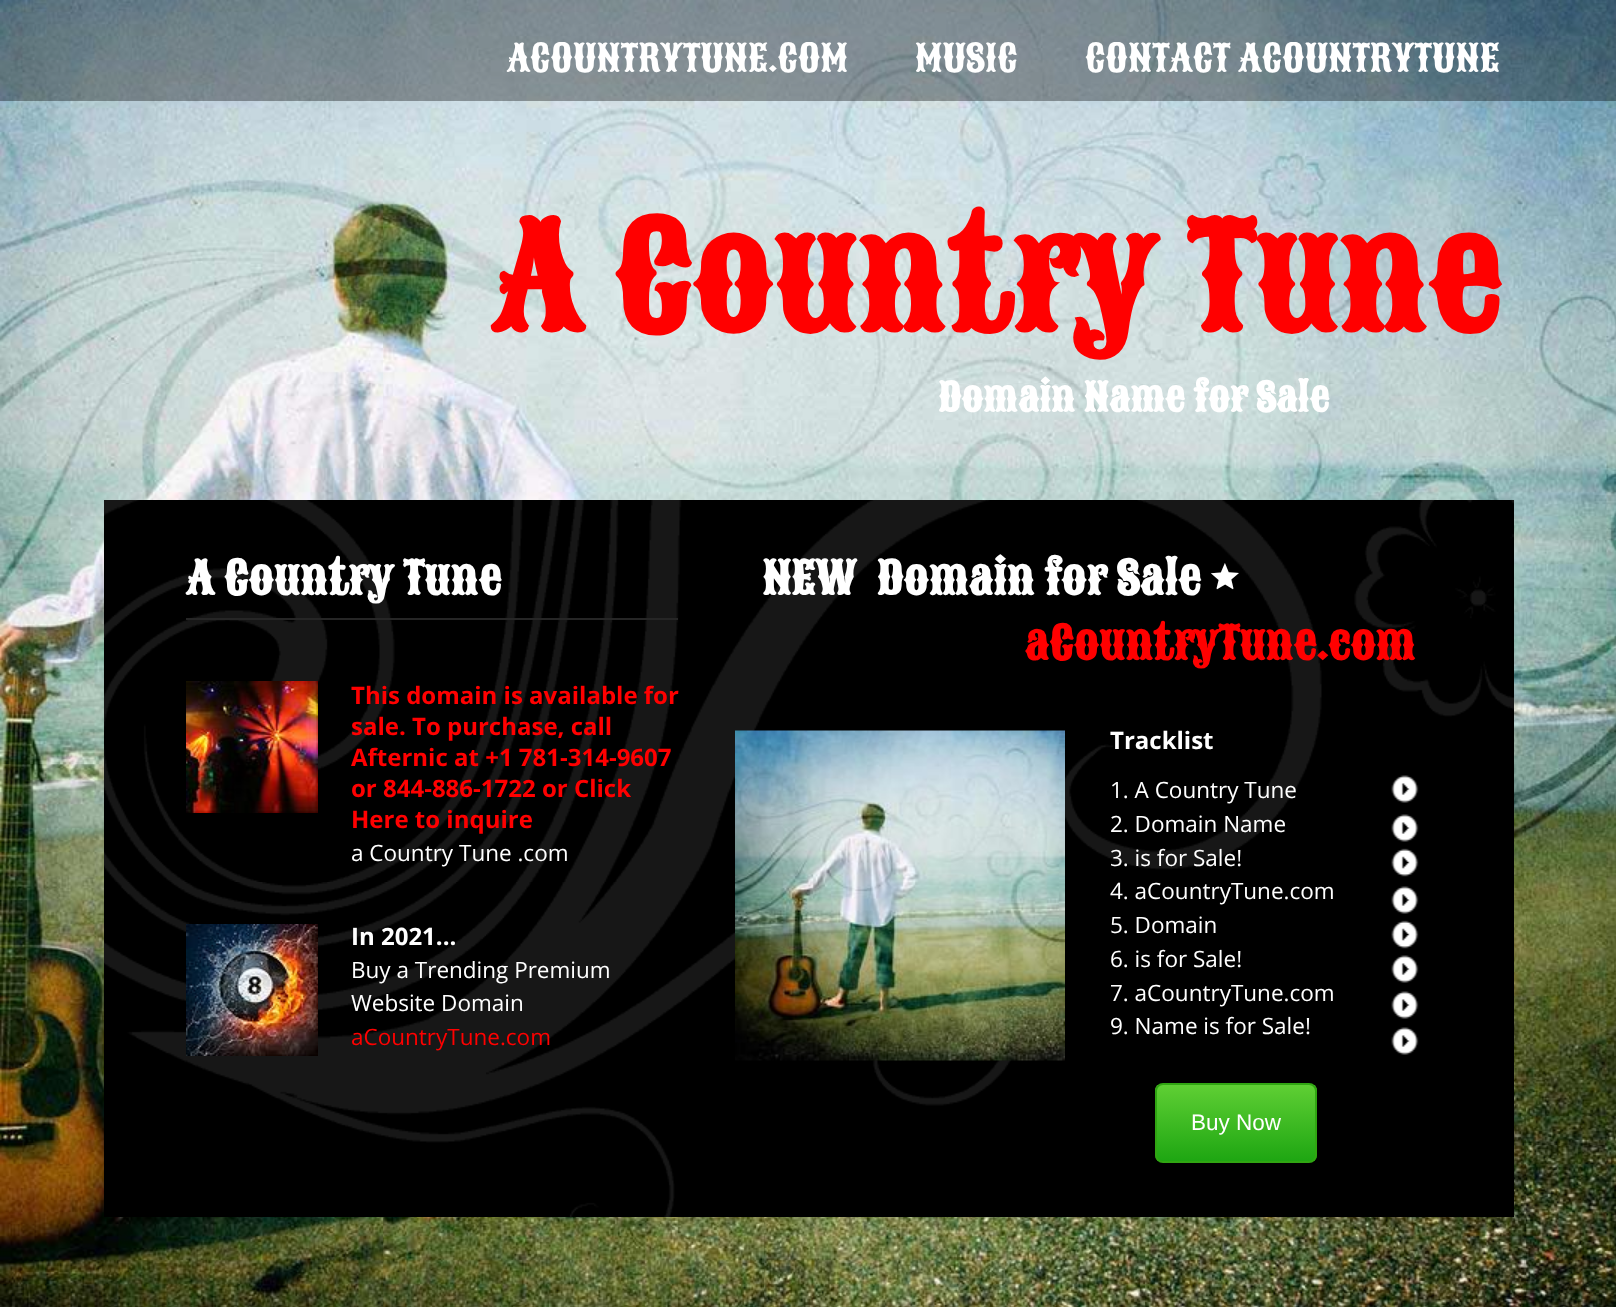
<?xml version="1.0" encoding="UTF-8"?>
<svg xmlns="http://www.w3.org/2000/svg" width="1616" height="1307">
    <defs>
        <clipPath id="clip1"><rect x="1155" y="1083" width="162" height="80" rx="8"/></clipPath>
        <linearGradient id="g1" gradientUnits="userSpaceOnUse" x1="1236" y1="1085" x2="1236" y2="1161"><stop offset="0" stop-color="#5FCF34"/><stop offset="1" stop-color="#1EA612"/></linearGradient>
    </defs>
    <rect width="100%" height="100%" fill="#FFFFFF"/>
    <image x="0" y="0" width="1616" height="1307" href="img_01.png"/>
    <rect x="0" y="0" width="1616" height="101" fill="#000000" fill-opacity="0.35"/>
    <text x="507" y="71" font-family="Sancreek" font-size="37.5" fill="#FFFFFF">ACOUNTRYTUNE.COM</text>
    <text x="915" y="71" font-family="Sancreek" font-size="37.5" fill="#FFFFFF">MUSIC</text>
    <text x="1085" y="71" font-family="Sancreek" font-size="37.5" fill="#FFFFFF">CONTACT ACOUNTRYTUNE</text>
    <text x="492" y="329" font-family="Sancreek" font-size="144" font-weight="700" fill="#FF0000">A Country Tune</text>
    <text x="938" y="411" font-family="Sancreek" font-size="39" font-weight="700" fill="#FFFFFF">Domain Name for Sale</text>
    <image x="104" y="500" width="1410" height="717" href="img_02.png"/>
    <text x="186" y="594" font-family="Sancreek" font-size="45" font-weight="700" fill="#FFFFFF">A Country Tune</text>
    <text x="762" y="594" font-family="Sancreek" font-size="45" font-weight="700" fill="#FFFFFF" xml:space="preserve">NEW  Domain for Sale •</text>
    <rect x="186" y="618" width="492" height="2" fill="#262626"/>
    <text x="1024" y="659" font-family="Sancreek" font-size="45" font-weight="700" fill="#FF0000">aCountryTune.com</text>
    <image x="186" y="681" width="132" height="132" href="img_03.png"/>
    <text font-family="Open Sans" font-size="24" font-weight="700" fill="#FF0000">
        <tspan x="351" y="704">This domain is available for</tspan>
        <tspan x="351" y="735">sale. To purchase, call</tspan>
        <tspan x="351" y="766">Afternic at +1 781-314-9607</tspan>
        <tspan x="351" y="797">or 844-886-1722 or Click</tspan>
        <tspan x="351" y="828">Here to inquire</tspan>
    </text>
    <text x="351" y="861" font-family="Open Sans" font-size="22.5" fill="#FFFFFF">a Country Tune .com</text>
    <image x="735" y="730" width="330" height="331" href="img_04.png"/>
    <text x="1110" y="749" font-family="Open Sans" font-size="24" font-weight="700" fill="#FFFFFF">Tracklist</text>
    <text font-family="Open Sans" font-size="22.5" fill="#FFFFFF">
        <tspan x="1110" y="798">1. A Country Tune</tspan>
        <tspan x="1110" y="832">2. Domain Name</tspan>
        <tspan x="1110" y="866">3. is for Sale!</tspan>
        <tspan x="1110" y="899">4. aCountryTune.com</tspan>
        <tspan x="1110" y="933">5. Domain</tspan>
        <tspan x="1110" y="967">6. is for Sale!</tspan>
        <tspan x="1110" y="1001">7. aCountryTune.com</tspan>
        <tspan x="1110" y="1034">9. Name is for Sale!</tspan>
    </text>
    <image x="1391" y="775" width="28" height="28" href="img_05.png"/>
    <image x="1391" y="814" width="28" height="28" href="img_05.png"/>
    <image x="1391" y="848" width="28" height="29" href="img_06.png"/>
    <image x="1391" y="886" width="28" height="28" href="img_05.png"/>
    <image x="186" y="924" width="132" height="132" href="img_07.png"/>
    <text x="351" y="945" font-family="Open Sans" font-size="24" font-weight="700" fill="#FFFFFF">In 2021...</text>
    <text font-family="Open Sans" font-size="22.5" fill="#FFFFFF">
        <tspan x="351" y="978">Buy a Trending Premium</tspan>
        <tspan x="351" y="1011">Website Domain</tspan>
    </text>
    <text x="351" y="1045" font-family="Open Sans" font-size="22.5" fill="#FF0000">aCountryTune.com</text>
    <image x="1391" y="920" width="28" height="29" href="img_06.png"/>
    <image x="1391" y="955" width="28" height="28" href="img_05.png"/>
    <image x="1391" y="991" width="28" height="28" href="img_05.png"/>
    <image x="1391" y="1027" width="28" height="28" href="img_05.png"/>
    <g clip-path="url(#clip1)">
        <rect x="1155" y="1085" width="162" height="76" fill="url(#g1)"/>
    </g>
    <rect x="1156" y="1084" width="160" height="78" rx="7" fill="none" stroke="#30A612" stroke-width="2"/>
    <text x="1191" y="1130" font-family="Liberation Sans" font-size="22.5" fill="#FFFFFF">Buy Now</text>
</svg>
